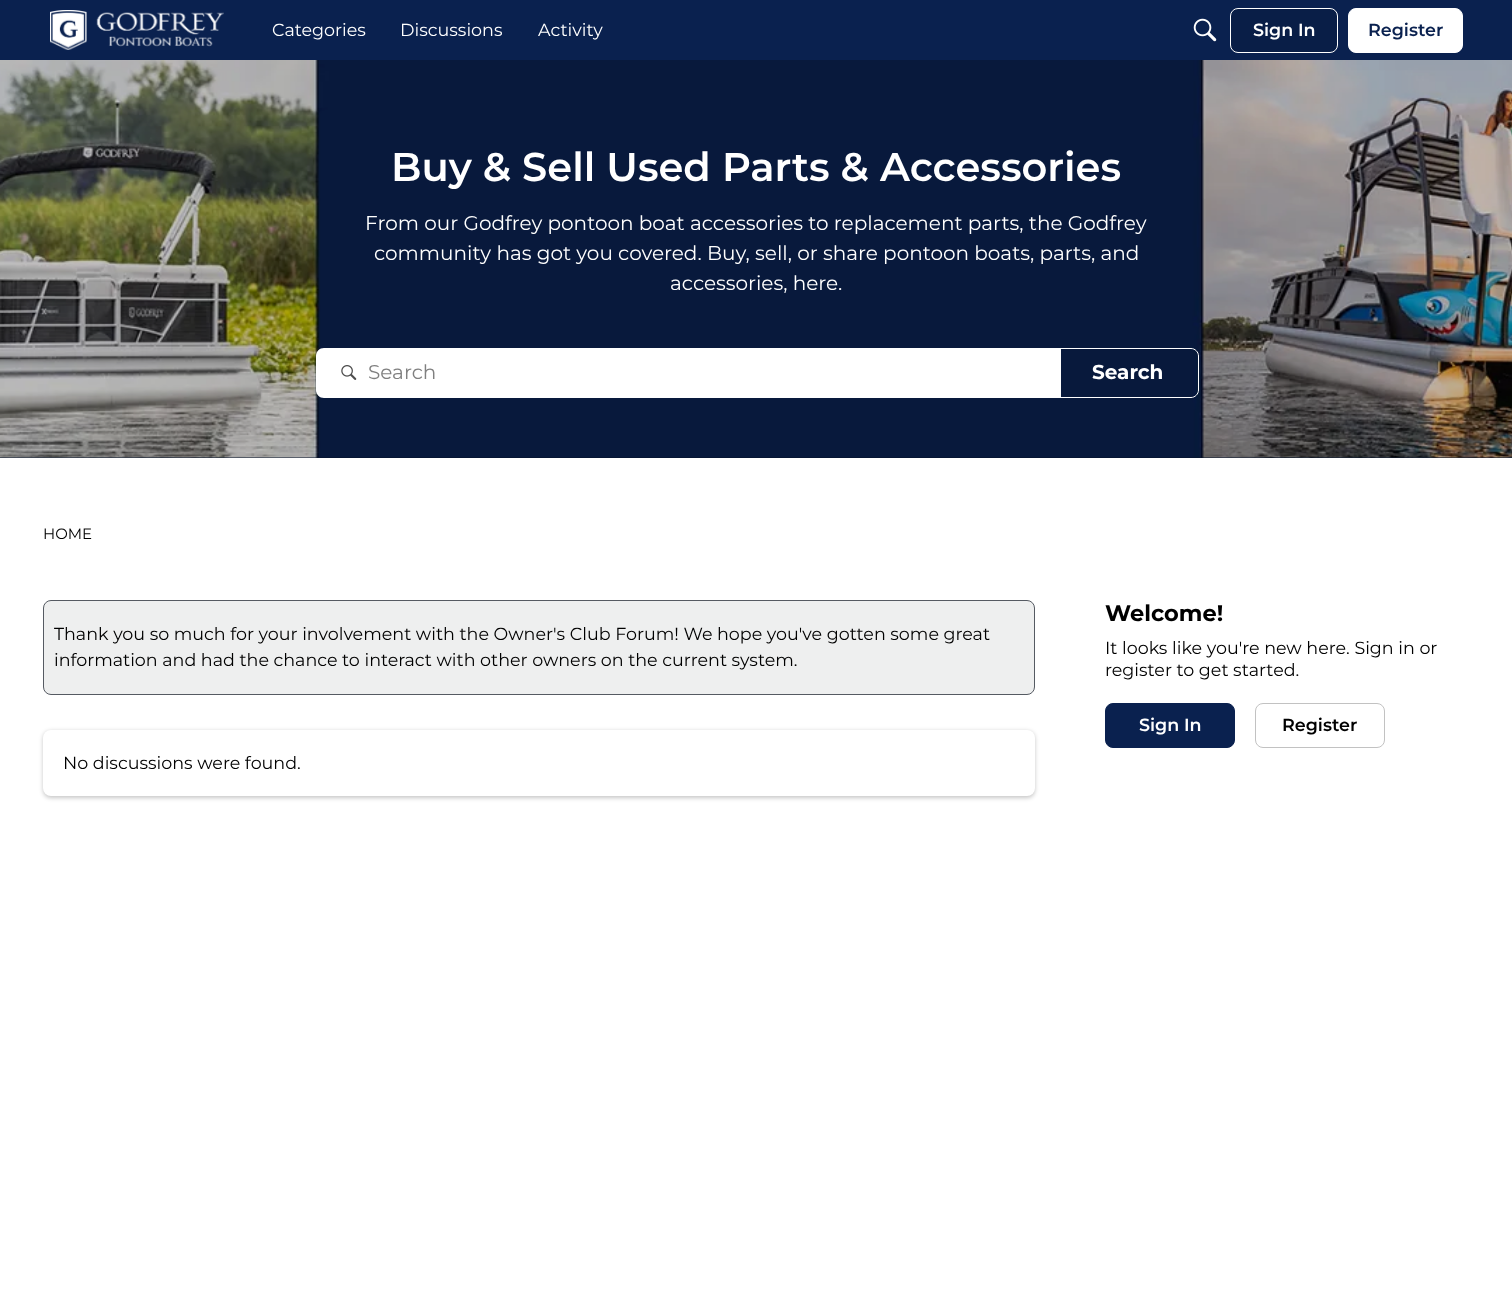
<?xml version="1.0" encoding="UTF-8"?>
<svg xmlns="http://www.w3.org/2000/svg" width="1512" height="1312">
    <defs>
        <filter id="blur1" x="-50%" y="-200%" width="200%" height="500%"><feGaussianBlur stdDeviation="2"/></filter>
    </defs>
    <rect width="100%" height="100%" fill="#FFFFFF"/>
    <rect x="0" y="0" width="1512" height="60" fill="#0A214F"/>
    <image x="50" y="10" width="174" height="40" href="img_01.png"/>
    <text x="272" y="36" font-family="Montserrat" font-size="17.5" fill="#FFFFFF">Categories</text>
    <text x="400" y="36" font-family="Montserrat" font-size="17.5" fill="#FFFFFF">Discussions</text>
    <text x="538" y="36" font-family="Montserrat" font-size="17.5" fill="#FFFFFF">Activity</text>
    <image x="1193" y="18" width="24" height="24" href="img_02.png"/>
    <rect x="1230.5" y="8.5" width="107" height="44" rx="7.5" fill="#091E47" stroke="#FFFFFF"/>
    <text x="1253" y="36" font-family="Montserrat" font-size="17.5" font-weight="600" fill="#FFFFFF">Sign In</text>
    <rect x="1348.5" y="8.5" width="114" height="44" rx="7.5" fill="#FFFFFF" stroke="#FFFFFF"/>
    <text x="1368" y="36" font-family="Montserrat" font-size="17.5" font-weight="600" fill="#0A214F">Register</text>
    <rect x="0" y="457" width="1512" height="1" fill="#05122A"/>
    <image x="0" y="60" width="1512" height="398" href="img_03.png"/>
    <text x="391" y="181" font-family="Montserrat" font-size="40" font-weight="600" fill="#FFFFFF">Buy &amp; Sell Used Parts &amp; Accessories</text>
    <text x="365" y="230" font-family="Montserrat" font-size="20" fill="#FFFFFF">From our Godfrey pontoon boat accessories to replacement parts, the Godfrey</text>
    <text x="374" y="260" font-family="Montserrat" font-size="20" fill="#FFFFFF">community has got you covered. Buy, sell, or share pontoon boats, parts, and</text>
    <text x="670" y="290" font-family="Montserrat" font-size="20" fill="#FFFFFF">accessories, here.</text>
    <path d="M 1060.5 348.5 H 1191 C 1195 348.5 1198.5 352 1198.5 356 V 390 C 1198.5 394 1195 397.5 1191 397.5 H 1060.5 Z" fill="none" stroke="#FFFFFF"/>
    <path d="M 324 348 H 1061 V 398 H 324 C 319.5 398 316 394.5 316 390 V 356 C 316 351.5 319.5 348 324 348 Z" fill="#FFFFFF"/>
    <image x="341" y="365" width="16" height="15" href="img_04.png"/>
    <text x="368" y="379" font-family="Montserrat" font-size="20" fill="#808080">Search</text>
    <text x="1092" y="379" font-family="Montserrat" font-size="20" font-weight="700" fill="#FFFFFF">Search</text>
    <text x="43" y="539" font-family="Montserrat" font-size="15" fill="#000000">HOME</text>
    <rect x="43.5" y="600.5" width="991" height="94" rx="7.5" fill="#EEEFEF" stroke="#555A62"/>
    <text font-family="Montserrat" font-size="17.5" fill="#000000">
        <tspan x="54" y="640">Thank you so much for your involvement with the Owner's Club Forum! We hope you've gotten some great</tspan>
        <tspan x="54" y="666">information and had the chance to interact with other owners on the current system.</tspan>
    </text>
    <rect x="43" y="731" width="992" height="67" rx="8" fill="#000000" fill-opacity="0.22" filter="url(#blur1)"/>
    <rect x="43" y="730" width="992" height="66" rx="8" fill="#FFFFFF"/>
    <text x="63" y="769" font-family="Montserrat" font-size="17.5" fill="#000000">No discussions were found.</text>
    <text x="1105" y="621" font-family="Montserrat" font-size="22.5" font-weight="700" fill="#000000">Welcome!</text>
    <text font-family="Montserrat" font-size="17.5" fill="#000000">
        <tspan x="1105" y="654">It looks like you're new here. Sign in or</tspan>
        <tspan x="1105" y="676">register to get started.</tspan>
    </text>
    <rect x="1105.5" y="703.5" width="129" height="44" rx="7.5" fill="#0A214F" stroke="#0A214F"/>
    <text x="1139" y="731" font-family="Montserrat" font-size="17.5" font-weight="600" fill="#FFFFFF">Sign In</text>
    <rect x="1255.5" y="703.5" width="129" height="44" rx="7.5" fill="none" stroke="#C2C2C2"/>
    <text x="1282" y="731" font-family="Montserrat" font-size="17.5" font-weight="600" fill="#000000">Register</text>
</svg>
